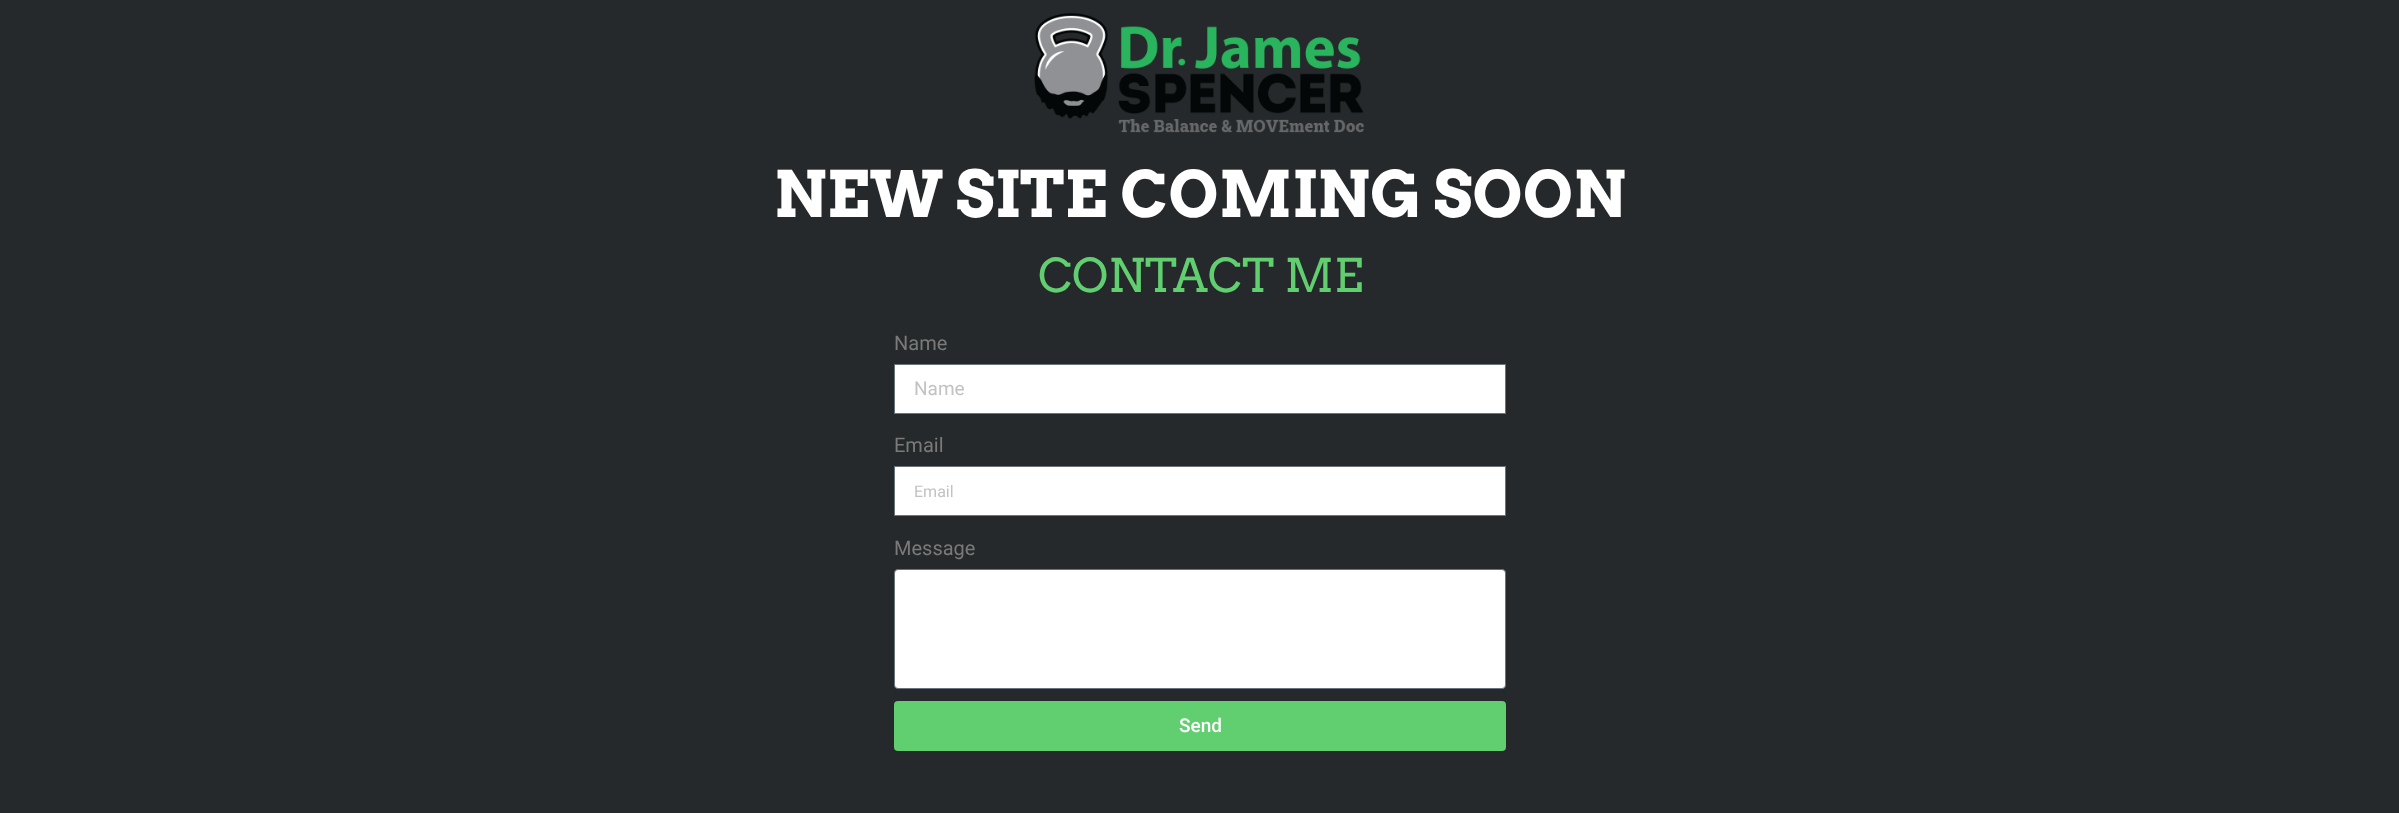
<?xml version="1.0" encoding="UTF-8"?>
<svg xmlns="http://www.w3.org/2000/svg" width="2399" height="813">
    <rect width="100%" height="100%" fill="#25292B"/>
    <image x="1034" y="13" width="330" height="120" href="img_01.png"/>
    <text x="774" y="217" font-family="Arvo" font-size="63.75" font-weight="700" fill="#FFFFFF">NEW SITE COMING SOON</text>
    <text x="1038" y="292" font-family="Arvo" font-size="46.25" fill="#61CE70">CONTACT ME</text>
    <text x="894" y="350" font-family="Roboto" font-size="20" fill="#7A7A7A">Name</text>
    <rect x="894.5" y="364.5" width="611" height="49" fill="#FFFFFF" stroke="#69727D"/>
    <text x="914" y="395" font-family="Roboto" font-size="19" fill="#C2C2C2">Name</text>
    <text x="894" y="452" font-family="Roboto" font-size="20" fill="#7A7A7A">Email</text>
    <rect x="894.5" y="466.5" width="611" height="49" fill="#FFFFFF" stroke="#69727D"/>
    <text x="914" y="497" font-family="Roboto" font-size="16" fill="#C2C2C2">Email</text>
    <text x="894" y="555" font-family="Roboto" font-size="20" fill="#7A7A7A">Message</text>
    <rect x="894.5" y="569.5" width="611" height="119" rx="3.5" fill="#FFFFFF" stroke="#69727D"/>
    <rect x="894" y="701" width="612" height="50" rx="4" fill="#61CE70"/>
    <text x="1179" y="732" font-family="Roboto" font-size="19" font-weight="500" fill="#FFFFFF">Send</text>
</svg>
